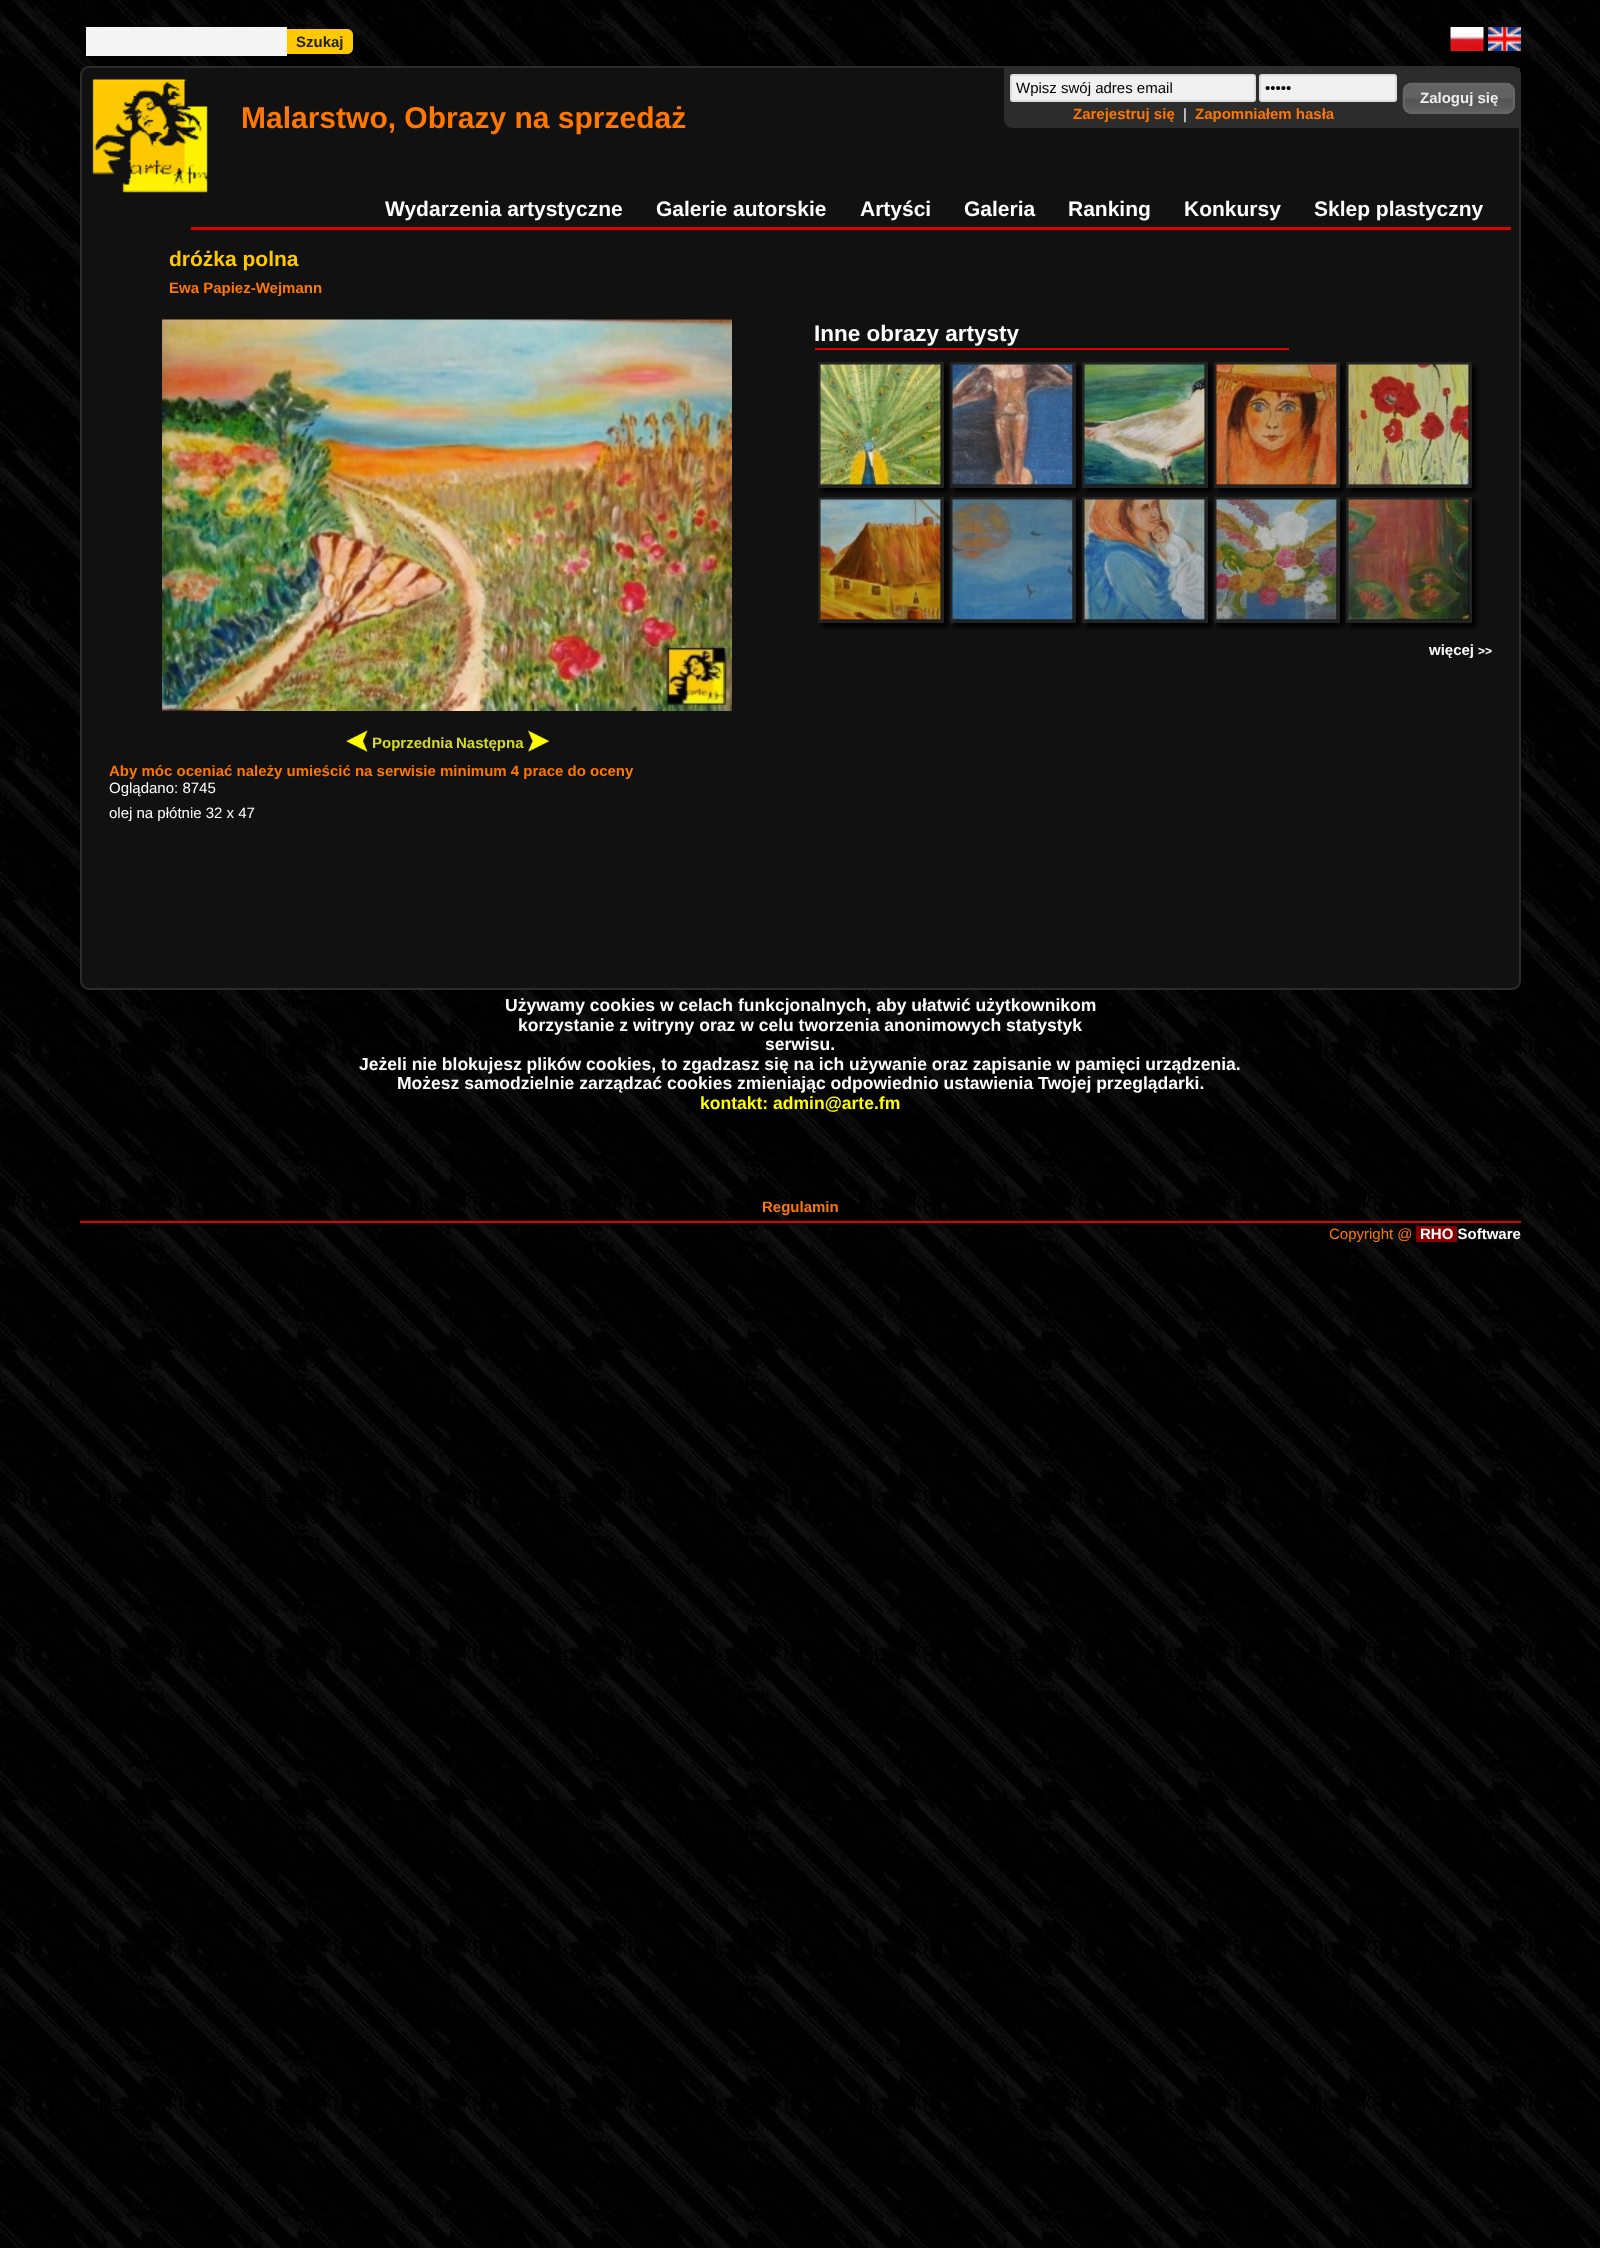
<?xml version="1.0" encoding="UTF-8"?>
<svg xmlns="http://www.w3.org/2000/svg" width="1600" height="2248">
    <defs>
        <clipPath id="clip1"><rect x="1016" y="80" width="234" height="16"/></clipPath>
        <filter id="blur1" x="-50%" y="-200%" width="200%" height="500%"><feGaussianBlur stdDeviation="2"/></filter>
    </defs>
    <rect width="100%" height="100%" fill="#FFFFFF"/>
    <image x="0" y="0" width="1600" height="2248" href="img_01.png"/>
    <rect x="86" y="27" width="201" height="29" fill="#F5F5F5"/>
    <path d="M 287 29 H 347 C 350.5 29 353 31.5 353 35 V 48 C 353 51.5 350.5 54 347 54 H 287 Z" fill="#FEC900"/>
    <text x="296" y="47" font-family="Liberation Sans" font-size="15" font-weight="700" fill="#1F1F1F">Szukaj</text>
    <image x="1450" y="27" width="34" height="24" href="img_02.png"/>
    <image x="1488" y="27" width="33" height="24" href="img_03.png"/>
    <rect x="81" y="67" width="1439" height="922" rx="8" fill="#111111" stroke="#2C2C2C" stroke-width="2"/>
    <image x="92" y="79" width="116" height="114" href="img_04.png"/>
    <text x="241" y="128" font-family="Liberation Sans" font-size="30" font-weight="700" fill="#FF7700">Malarstwo, Obrazy na sprzedaż</text>
    <path d="M 1004 68 H 1520 V 128 H 1013 C 1008 128 1004 124 1004 119 Z" fill="#2C2C2C"/>
    <rect x="1011" y="75" width="244" height="26" rx="2" fill="#F1F1F1" stroke="#DCDCDC" stroke-width="2"/>
    <g clip-path="url(#clip1)">
        <text x="1016" y="93" font-family="Liberation Sans" font-size="15" fill="#000000">Wpisz swój adres email</text>
    </g>
    <rect x="1260" y="75" width="136" height="26" rx="2" fill="#F1F1F1" stroke="#DCDCDC" stroke-width="2"/>
    <text x="1265" y="93" font-family="Liberation Sans" font-size="15" fill="#000000">•••••</text>
    <text x="1073" y="119" font-family="Liberation Sans" font-size="15" font-weight="700" fill="#FF7700">Zarejestruj się</text>
    <text x="1183" y="119" font-family="Liberation Sans" font-size="15" fill="#FFFFFF">|</text>
    <text x="1195" y="119" font-family="Liberation Sans" font-size="15" font-weight="700" fill="#FF7700">Zapomniałem hasła</text>
    <image x="1402" y="82" width="113" height="32" href="img_05.png"/>
    <rect x="1404" y="84" width="110" height="29" rx="8" fill="none" stroke="#666666" stroke-width="2"/>
    <text x="1420" y="103" font-family="Liberation Sans" font-size="15" font-weight="700" fill="#EEEEEE">Zaloguj się</text>
    <rect x="191" y="227" width="1320" height="3" fill="#DF0000"/>
    <text x="385" y="216" font-family="Liberation Sans" font-size="21" font-weight="700" fill="#FFFFFF">Wydarzenia artystyczne</text>
    <text x="656" y="216" font-family="Liberation Sans" font-size="21" font-weight="700" fill="#FFFFFF">Galerie autorskie</text>
    <text x="860" y="216" font-family="Liberation Sans" font-size="21" font-weight="700" fill="#FFFFFF">Artyści</text>
    <text x="964" y="216" font-family="Liberation Sans" font-size="21" font-weight="700" fill="#FFFFFF">Galeria</text>
    <text x="1068" y="216" font-family="Liberation Sans" font-size="21" font-weight="700" fill="#FFFFFF">Ranking</text>
    <text x="1184" y="216" font-family="Liberation Sans" font-size="21" font-weight="700" fill="#FFFFFF">Konkursy</text>
    <text x="1314" y="216" font-family="Liberation Sans" font-size="21" font-weight="700" fill="#FFFFFF">Sklep plastyczny</text>
    <text x="169" y="266" font-family="Liberation Sans" font-size="21" font-weight="700" fill="#FEC900">dróżka polna</text>
    <text x="169" y="293" font-family="Liberation Sans" font-size="15" font-weight="700" fill="#FF7700">Ewa Papiez-Wejmann</text>
    <rect x="815" y="348" width="474" height="2" fill="#DF0000"/>
    <text x="814" y="341" font-family="Liberation Sans" font-size="22.5" font-weight="700" fill="#FFFFFF">Inne obrazy artysty</text>
    <rect x="822" y="366" width="126" height="126" fill="#000000" filter="url(#blur1)"/>
    <rect x="819.5" y="363.5" width="123" height="123" fill="none" stroke="#232323" stroke-width="3"/>
    <image x="820" y="364" width="121" height="121" href="img_06.png"/>
    <rect x="954" y="366" width="126" height="126" fill="#000000" filter="url(#blur1)"/>
    <rect x="951.5" y="363.5" width="123" height="123" fill="none" stroke="#232323" stroke-width="3"/>
    <image x="952" y="364" width="121" height="121" href="img_07.png"/>
    <rect x="1086" y="366" width="126" height="126" fill="#000000" filter="url(#blur1)"/>
    <rect x="1083.5" y="363.5" width="123" height="123" fill="none" stroke="#232323" stroke-width="3"/>
    <image x="1084" y="364" width="121" height="121" href="img_08.png"/>
    <rect x="1218" y="366" width="126" height="126" fill="#000000" filter="url(#blur1)"/>
    <rect x="1215.5" y="363.5" width="123" height="123" fill="none" stroke="#232323" stroke-width="3"/>
    <image x="1216" y="364" width="121" height="121" href="img_09.png"/>
    <rect x="1350" y="366" width="126" height="126" fill="#000000" filter="url(#blur1)"/>
    <rect x="1347.5" y="363.5" width="123" height="123" fill="none" stroke="#232323" stroke-width="3"/>
    <image x="1348" y="364" width="121" height="121" href="img_10.png"/>
    <rect x="822" y="501" width="126" height="126" fill="#000000" filter="url(#blur1)"/>
    <rect x="819.5" y="498.5" width="123" height="123" fill="none" stroke="#232323" stroke-width="3"/>
    <image x="820" y="499" width="121" height="121" href="img_11.png"/>
    <rect x="954" y="501" width="126" height="126" fill="#000000" filter="url(#blur1)"/>
    <rect x="951.5" y="498.5" width="123" height="123" fill="none" stroke="#232323" stroke-width="3"/>
    <image x="952" y="499" width="121" height="121" href="img_12.png"/>
    <rect x="1086" y="501" width="126" height="126" fill="#000000" filter="url(#blur1)"/>
    <rect x="1083.5" y="498.5" width="123" height="123" fill="none" stroke="#232323" stroke-width="3"/>
    <image x="1084" y="499" width="121" height="121" href="img_13.png"/>
    <rect x="1218" y="501" width="126" height="126" fill="#000000" filter="url(#blur1)"/>
    <rect x="1215.5" y="498.5" width="123" height="123" fill="none" stroke="#232323" stroke-width="3"/>
    <image x="1216" y="499" width="121" height="121" href="img_14.png"/>
    <rect x="1350" y="501" width="126" height="126" fill="#000000" filter="url(#blur1)"/>
    <rect x="1347.5" y="498.5" width="123" height="123" fill="none" stroke="#232323" stroke-width="3"/>
    <image x="1348" y="499" width="121" height="121" href="img_15.png"/>
    <text x="1429" y="655" font-family="Liberation Sans" font-size="15" font-weight="700" fill="#FFFFFF">więcej</text>
    <text x="1478" y="655" font-family="Liberation Sans" font-size="12" font-weight="700" fill="#FFFFFF">&gt;&gt;</text>
    <image x="162" y="319" width="570" height="392" href="img_16.png"/>
    <image x="346" y="730" width="22" height="22" href="img_17.png"/>
    <text x="372" y="748" font-family="Liberation Sans" font-size="15" font-weight="700" fill="#D5DB25">Poprzednia</text>
    <text x="456" y="748" font-family="Liberation Sans" font-size="15" font-weight="700" fill="#D5DB25">Następna</text>
    <image x="528" y="730" width="21" height="22" href="img_18.png"/>
    <text x="109" y="776" font-family="Liberation Sans" font-size="15" font-weight="700" fill="#FF7700">Aby móc oceniać należy umieścić na serwisie minimum 4 prace do oceny</text>
    <text font-family="Liberation Sans" font-size="15" fill="#FFFFFF">
        <tspan x="109" y="793">Oglądano: 8745</tspan>
        <tspan x="109" y="818">olej na płótnie 32 x 47</tspan>
    </text>
    <text x="505" y="1011" font-family="Liberation Sans" font-size="17.55" font-weight="700" fill="#FFFFFF">Używamy cookies w celach funkcjonalnych, aby ułatwić użytkownikom</text>
    <text x="518" y="1031" font-family="Liberation Sans" font-size="17.55" font-weight="700" fill="#FFFFFF">korzystanie z witryny oraz w celu tworzenia anonimowych statystyk</text>
    <text x="765" y="1050" font-family="Liberation Sans" font-size="17.55" font-weight="700" fill="#FFFFFF">serwisu.</text>
    <text x="359" y="1070" font-family="Liberation Sans" font-size="17.55" font-weight="700" fill="#FFFFFF">Jeżeli nie blokujesz plików cookies, to zgadzasz się na ich używanie oraz zapisanie w pamięci urządzenia.</text>
    <text x="397" y="1089" font-family="Liberation Sans" font-size="17.55" font-weight="700" fill="#FFFFFF">Możesz samodzielnie zarządzać cookies zmieniając odpowiednio ustawienia Twojej przeglądarki.</text>
    <text x="700" y="1109" font-family="Liberation Sans" font-size="17.55" font-weight="700" fill="#FFFF00">kontakt: admin@arte.fm</text>
    <text x="762" y="1212" font-family="Liberation Sans" font-size="15" font-weight="700" fill="#FF7700">Regulamin</text>
    <rect x="80" y="1221" width="1441" height="2" fill="#DF0000"/>
    <text x="1329" y="1239" font-family="Liberation Sans" font-size="15" fill="#FF7700">Copyright @</text>
    <rect x="1416" y="1226" width="41" height="16" fill="#880000"/>
    <text x="1420" y="1239" font-family="Liberation Sans" font-size="15" font-weight="700" fill="#FFFFFF">RHO Software</text>
</svg>
